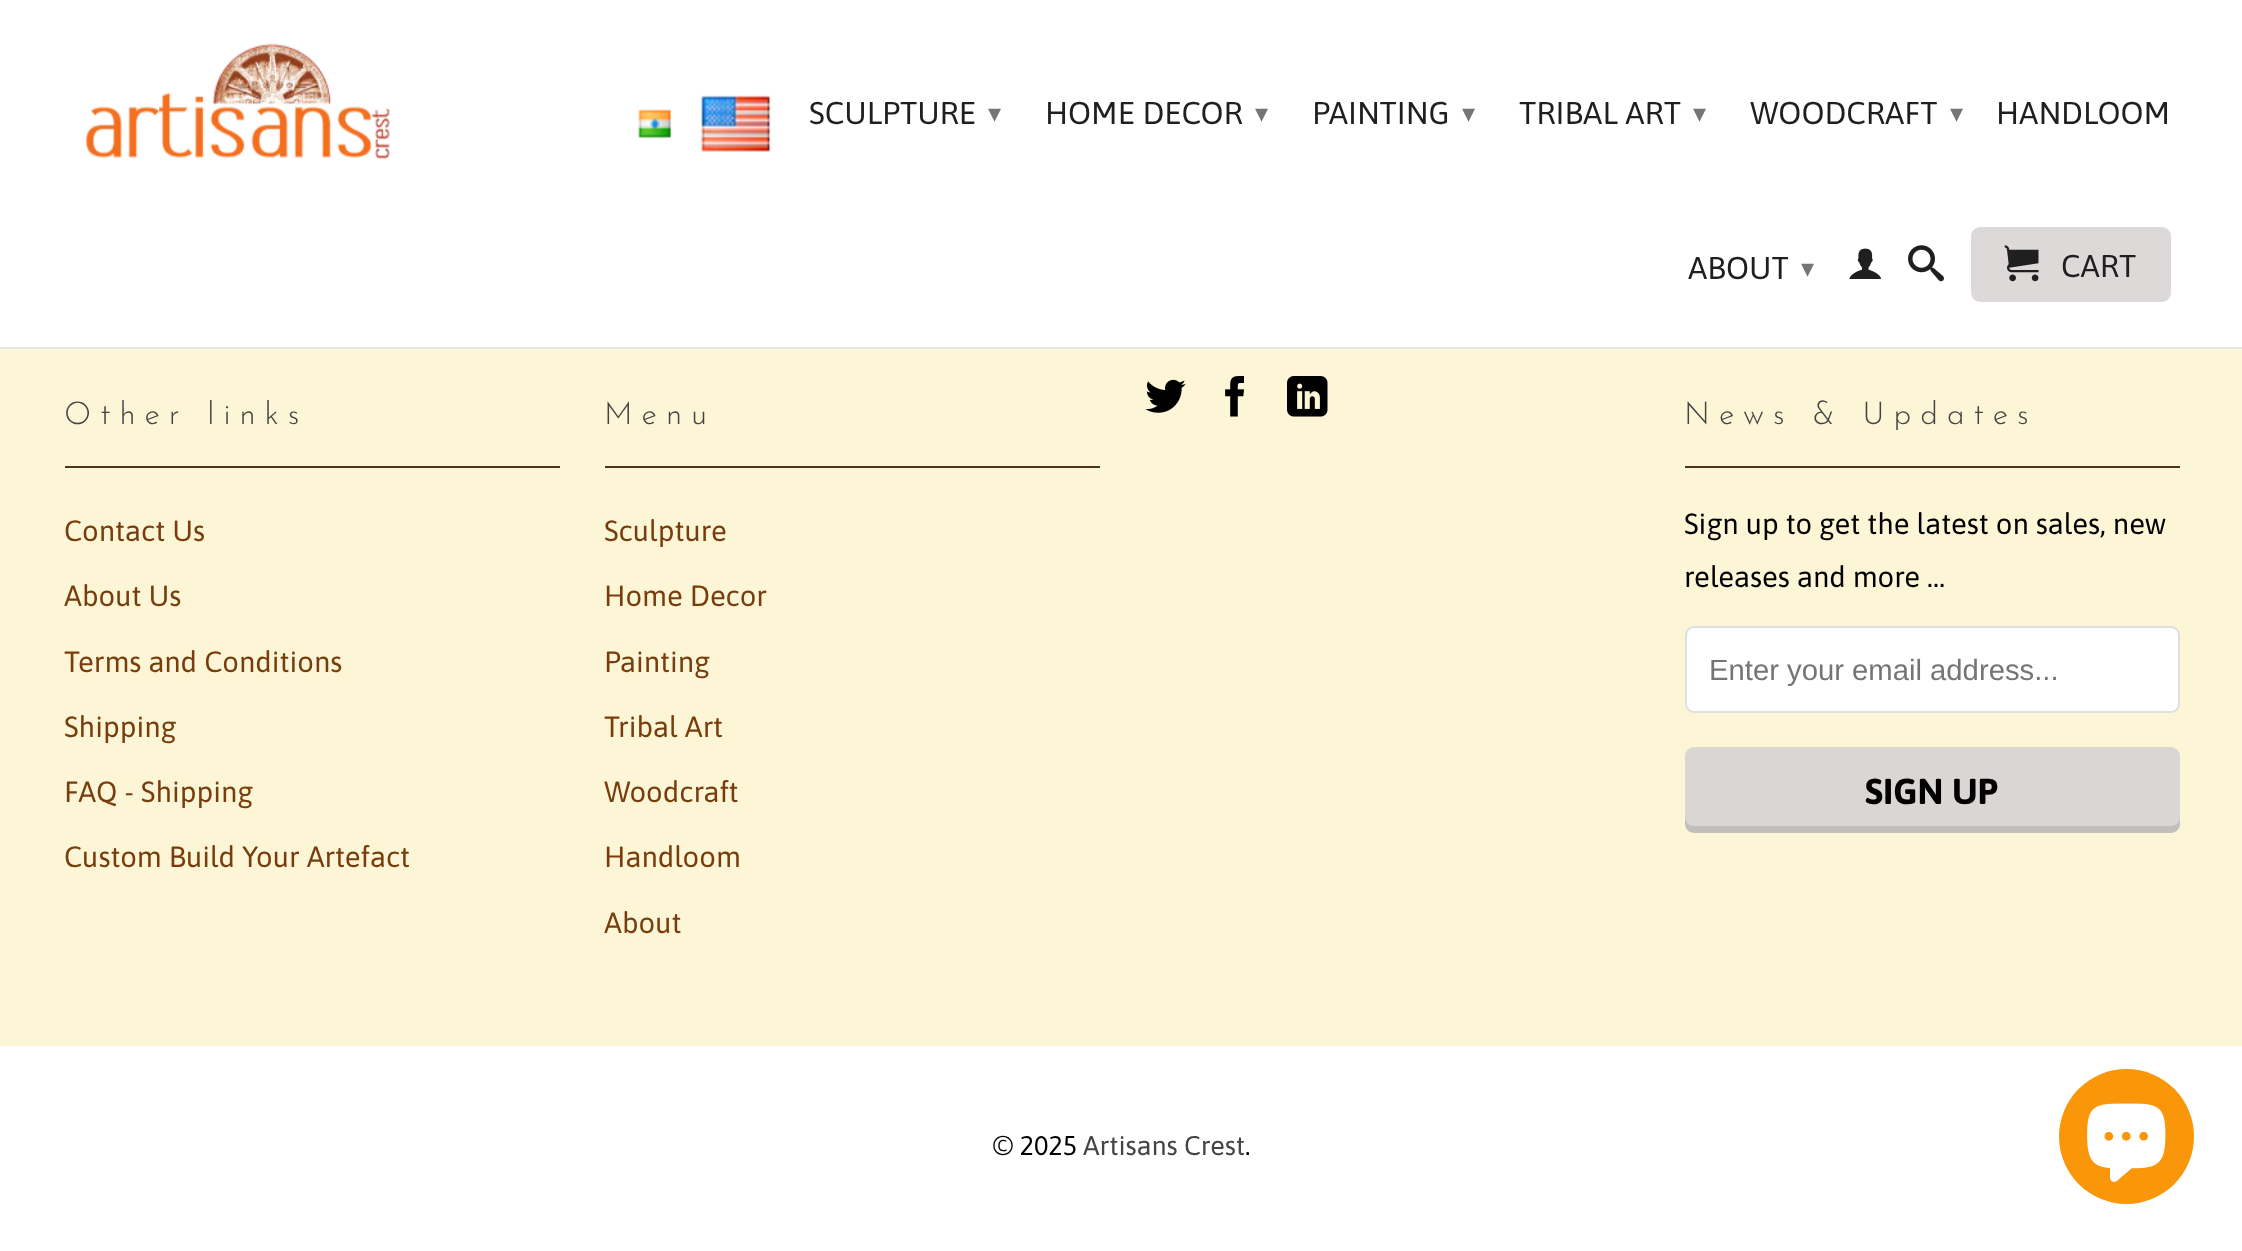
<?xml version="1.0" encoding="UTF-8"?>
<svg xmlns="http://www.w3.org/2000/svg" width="2242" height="1251">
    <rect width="100%" height="100%" fill="#FCF6D7"/>
    <rect x="0" y="0" width="2242" height="347" fill="#FFFFFF"/>
    <rect x="0" y="347" width="2242" height="2" fill="#E5E5E5"/>
    <image x="85" y="43" width="305" height="116" href="img_01.png"/>
    <image x="638" y="109" width="34" height="30" href="img_02.png"/>
    <image x="701" y="95" width="70" height="57" href="img_03.png"/>
    <text x="809" y="124" font-family="Asap" font-size="31.5" fill="#1F1F1F">SCULPTURE</text>
    <text x="988" y="122" font-family="DejaVu Sans" font-size="26" fill="#757575">▾</text>
    <text x="1045" y="124" font-family="Asap" font-size="31.5" fill="#1F1F1F">HOME DECOR</text>
    <text x="1255" y="122" font-family="DejaVu Sans" font-size="26" fill="#757575">▾</text>
    <text x="1312" y="124" font-family="Asap" font-size="31.5" fill="#1F1F1F">PAINTING</text>
    <text x="1462" y="122" font-family="DejaVu Sans" font-size="26" fill="#757575">▾</text>
    <text x="1519" y="124" font-family="Asap" font-size="31.5" fill="#1F1F1F">TRIBAL ART</text>
    <text x="1693" y="122" font-family="DejaVu Sans" font-size="26" fill="#757575">▾</text>
    <text x="1750" y="124" font-family="Asap" font-size="31.5" fill="#1F1F1F">WOODCRAFT</text>
    <text x="1950" y="122" font-family="DejaVu Sans" font-size="26" fill="#757575">▾</text>
    <text x="1996" y="124" font-family="Asap" font-size="31.5" fill="#1F1F1F">HANDLOOM</text>
    <text x="1688" y="279" font-family="Asap" font-size="31.5" fill="#1F1F1F">ABOUT</text>
    <text x="1801" y="277" font-family="DejaVu Sans" font-size="26" fill="#757575">▾</text>
    <image x="1849" y="248" width="32" height="31" href="img_04.png"/>
    <image x="1908" y="245" width="36" height="37" href="img_05.png"/>
    <rect x="1971" y="227" width="200" height="75" rx="9" fill="#DDD9D9"/>
    <image x="2004" y="245" width="35" height="37" href="img_06.png"/>
    <text x="2061" y="277" font-family="Asap" font-size="31.5" fill="#1F1F1F">CART</text>
    <rect x="65" y="466" width="495" height="2" fill="#50311F"/>
    <text x="64" y="424" font-family="Josefin Sans" font-size="31.5" font-weight="300" letter-spacing="9" fill="#444444">Other links</text>
    <text x="64" y="541" font-family="Asap" font-size="29.25" fill="#783D0C">Contact Us</text>
    <text x="64" y="606" font-family="Asap" font-size="29.25" fill="#783D0C">About Us</text>
    <text x="64" y="672" font-family="Asap" font-size="29.25" fill="#783D0C">Terms and Conditions</text>
    <text x="64" y="737" font-family="Asap" font-size="29.25" fill="#783D0C">Shipping</text>
    <text x="64" y="802" font-family="Asap" font-size="29.25" fill="#783D0C">FAQ - Shipping</text>
    <text x="64" y="867" font-family="Asap" font-size="29.25" fill="#783D0C">Custom Build Your Artefact</text>
    <rect x="605" y="466" width="495" height="2" fill="#50311F"/>
    <text x="604" y="424" font-family="Josefin Sans" font-size="31.5" font-weight="300" letter-spacing="9" fill="#444444">Menu</text>
    <text x="604" y="541" font-family="Asap" font-size="29.25" fill="#783D0C">Sculpture</text>
    <text x="604" y="606" font-family="Asap" font-size="29.25" fill="#783D0C">Home Decor</text>
    <text x="604" y="672" font-family="Asap" font-size="29.25" fill="#783D0C">Painting</text>
    <text x="604" y="737" font-family="Asap" font-size="29.25" fill="#783D0C">Tribal Art</text>
    <text x="604" y="802" font-family="Asap" font-size="29.25" fill="#783D0C">Woodcraft</text>
    <text x="604" y="867" font-family="Asap" font-size="29.25" fill="#783D0C">Handloom</text>
    <text x="604" y="933" font-family="Asap" font-size="29.25" fill="#783D0C">About</text>
    <image x="1145" y="379" width="41" height="34" href="img_07.png"/>
    <image x="1225" y="376" width="19" height="41" href="img_08.png"/>
    <image x="1287" y="376" width="41" height="41" href="img_09.png"/>
    <rect x="1685" y="466" width="495" height="2" fill="#50311F"/>
    <text x="1684" y="424" font-family="Josefin Sans" font-size="31.5" font-weight="300" letter-spacing="9" fill="#444444">News &amp; Updates</text>
    <text font-family="Asap" font-size="29.25" fill="#000000">
        <tspan x="1684" y="534">Sign up to get the latest on sales, new</tspan>
        <tspan x="1684" y="587">releases and more …</tspan>
    </text>
    <rect x="1686" y="627" width="493" height="85" rx="8" fill="#FFFFFF" stroke="#DCE0E0" stroke-width="2"/>
    <text x="1709" y="680" font-family="Liberation Sans" font-size="29.25" fill="#757575">Enter your email address...</text>
    <rect x="1685" y="747" width="495" height="86" rx="9" fill="#D9D6D3"/>
    <path d="M 1685 817 V 824 C 1685 829 1689 833 1694 833 H 2171 C 2176 833 2180 829 2180 824 V 817 C 2180 822 2176 826 2171 826 H 1694 C 1689 826 1685 822 1685 817 Z" fill="#000000" fill-opacity="0.1"/>
    <text x="1865" y="804" font-family="Asap" font-size="36" font-weight="700" fill="#000000">SIGN UP</text>
    <rect x="0" y="1046" width="2242" height="205" fill="#FFFFFF"/>
    <text x="993" y="1155" font-family="Asap" font-size="27" fill="#000000">© 2025</text>
    <text x="1083" y="1155" font-family="Asap" font-size="27" fill="#444444">Artisans Crest</text>
    <text x="1245" y="1155" font-family="Asap" font-size="27" fill="#000000">.</text>
    <circle cx="2126.5" cy="1136.5" r="67.5" fill="#FA960A"/>
    <image x="2087" y="1103" width="79" height="79" href="img_10.png"/>
</svg>
